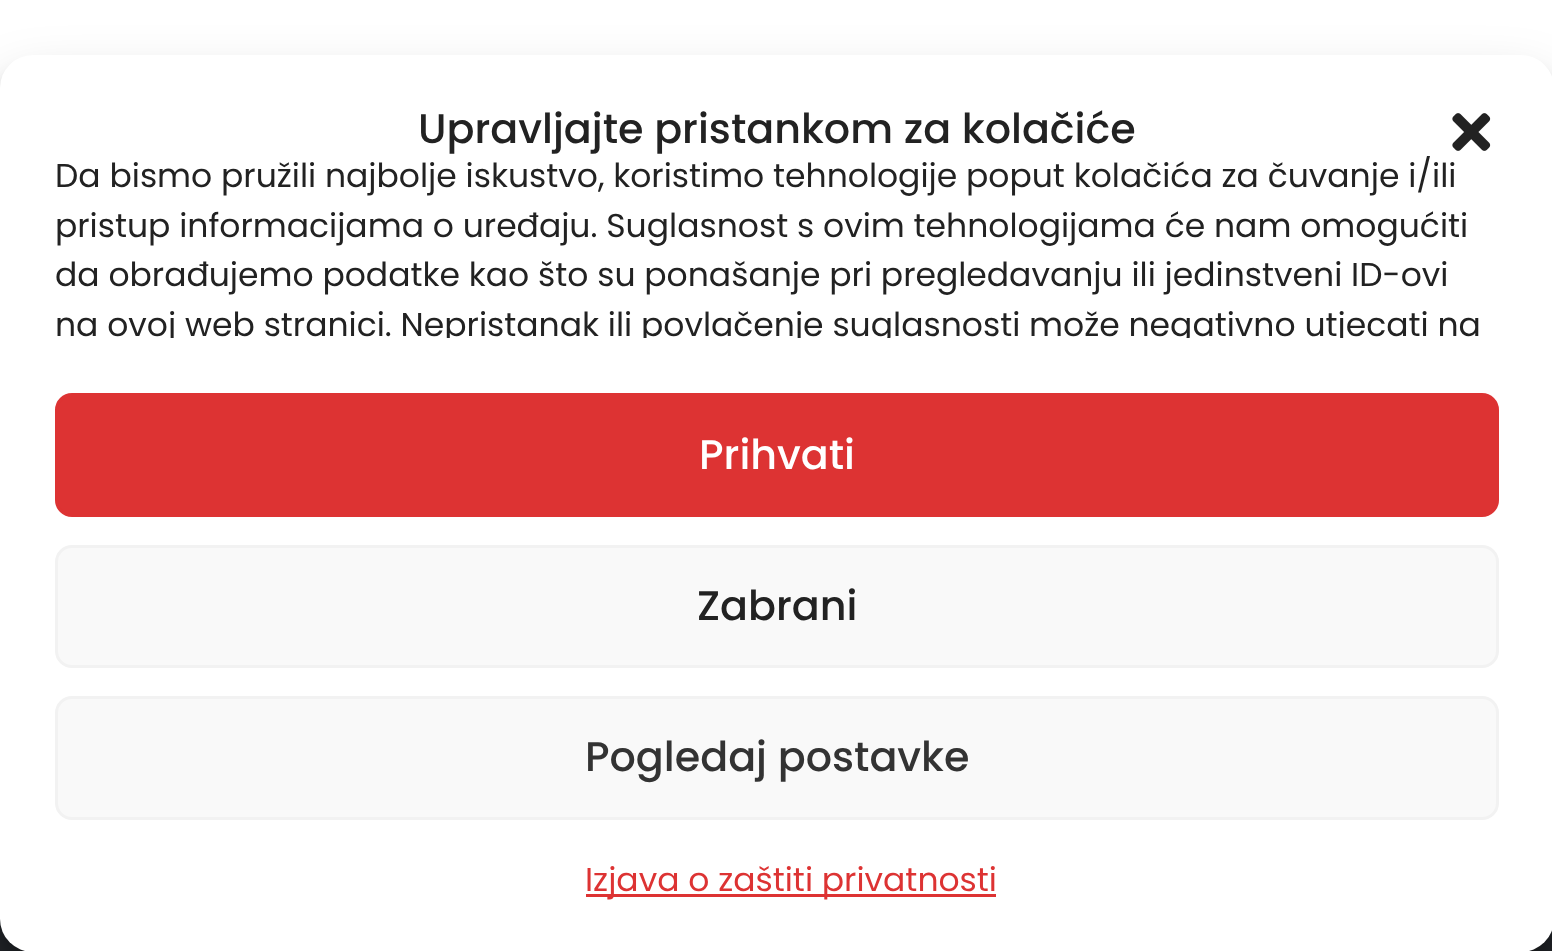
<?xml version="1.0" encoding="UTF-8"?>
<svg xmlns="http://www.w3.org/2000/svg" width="1552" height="951">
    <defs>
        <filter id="blur1" x="-50%" y="-200%" width="200%" height="500%"><feGaussianBlur stdDeviation="8"/></filter>
        <filter id="blur2" x="-50%" y="-200%" width="200%" height="500%"><feGaussianBlur stdDeviation="27.5"/></filter>
        <clipPath id="clip1"><rect x="55" y="151" width="1444" height="187"/></clipPath>
    </defs>
    <rect width="100%" height="100%" fill="#222529"/>
    <rect x="0" y="0" width="1552" height="88" fill="#FFFFFF"/>
    <rect x="0" y="72" width="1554" height="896" rx="33" fill="#000000" fill-opacity="0.23" filter="url(#blur1)"/>
    <rect x="0" y="83" width="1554" height="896" rx="33" fill="#000000" fill-opacity="0.19" filter="url(#blur2)"/>
    <rect x="0" y="55" width="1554" height="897" rx="33" fill="#FFFFFF"/>
    <text x="418" y="143" font-family="Poppins" font-size="41.25" font-weight="500" fill="#222222">Upravljajte pristankom za kolačiće</text>
    <image x="1452" y="113" width="39" height="38" href="img_01.png"/>
    <text font-family="Poppins" font-size="33" fill="#222222">
        <tspan x="55" y="187">Da bismo pružili najbolje iskustvo, koristimo tehnologije poput kolačića za čuvanje i/ili</tspan>
        <tspan x="55" y="237">pristup informacijama o uređaju. Suglasnost s ovim tehnologijama će nam omogućiti</tspan>
        <tspan x="55" y="286">da obrađujemo podatke kao što su ponašanje pri pregledavanju ili jedinstveni ID-ovi</tspan>
    </text>
    <g clip-path="url(#clip1)">
        <text x="55" y="336" font-family="Poppins" font-size="33" fill="#222222">na ovoj web stranici. Nepristanak ili povlačenje suglasnosti može negativno utjecati na</text>
    </g>
    <rect x="56.5" y="394.5" width="1441" height="121" rx="15.5" fill="#DD3333" stroke="#DD3333" stroke-width="3"/>
    <text x="699" y="469" font-family="Poppins" font-size="41.25" font-weight="500" fill="#FFFFFF">Prihvati</text>
    <rect x="56.5" y="546.5" width="1441" height="120" rx="15.5" fill="#F9F9F9" stroke="#F2F2F2" stroke-width="3"/>
    <text x="697" y="620" font-family="Poppins" font-size="41.25" font-weight="500" fill="#222222">Zabrani</text>
    <rect x="56.5" y="697.5" width="1441" height="121" rx="15.5" fill="#F9F9F9" stroke="#F2F2F2" stroke-width="3"/>
    <text x="585" y="771" font-family="Poppins" font-size="41.25" font-weight="500" fill="#333333">Pogledaj postavke</text>
    <rect x="586" y="894" width="410" height="3" fill="#DD3333"/>
    <text x="585" y="891" font-family="Poppins" font-size="33" fill="#DD3333">Izjava o zaštiti privatnosti</text>
</svg>
